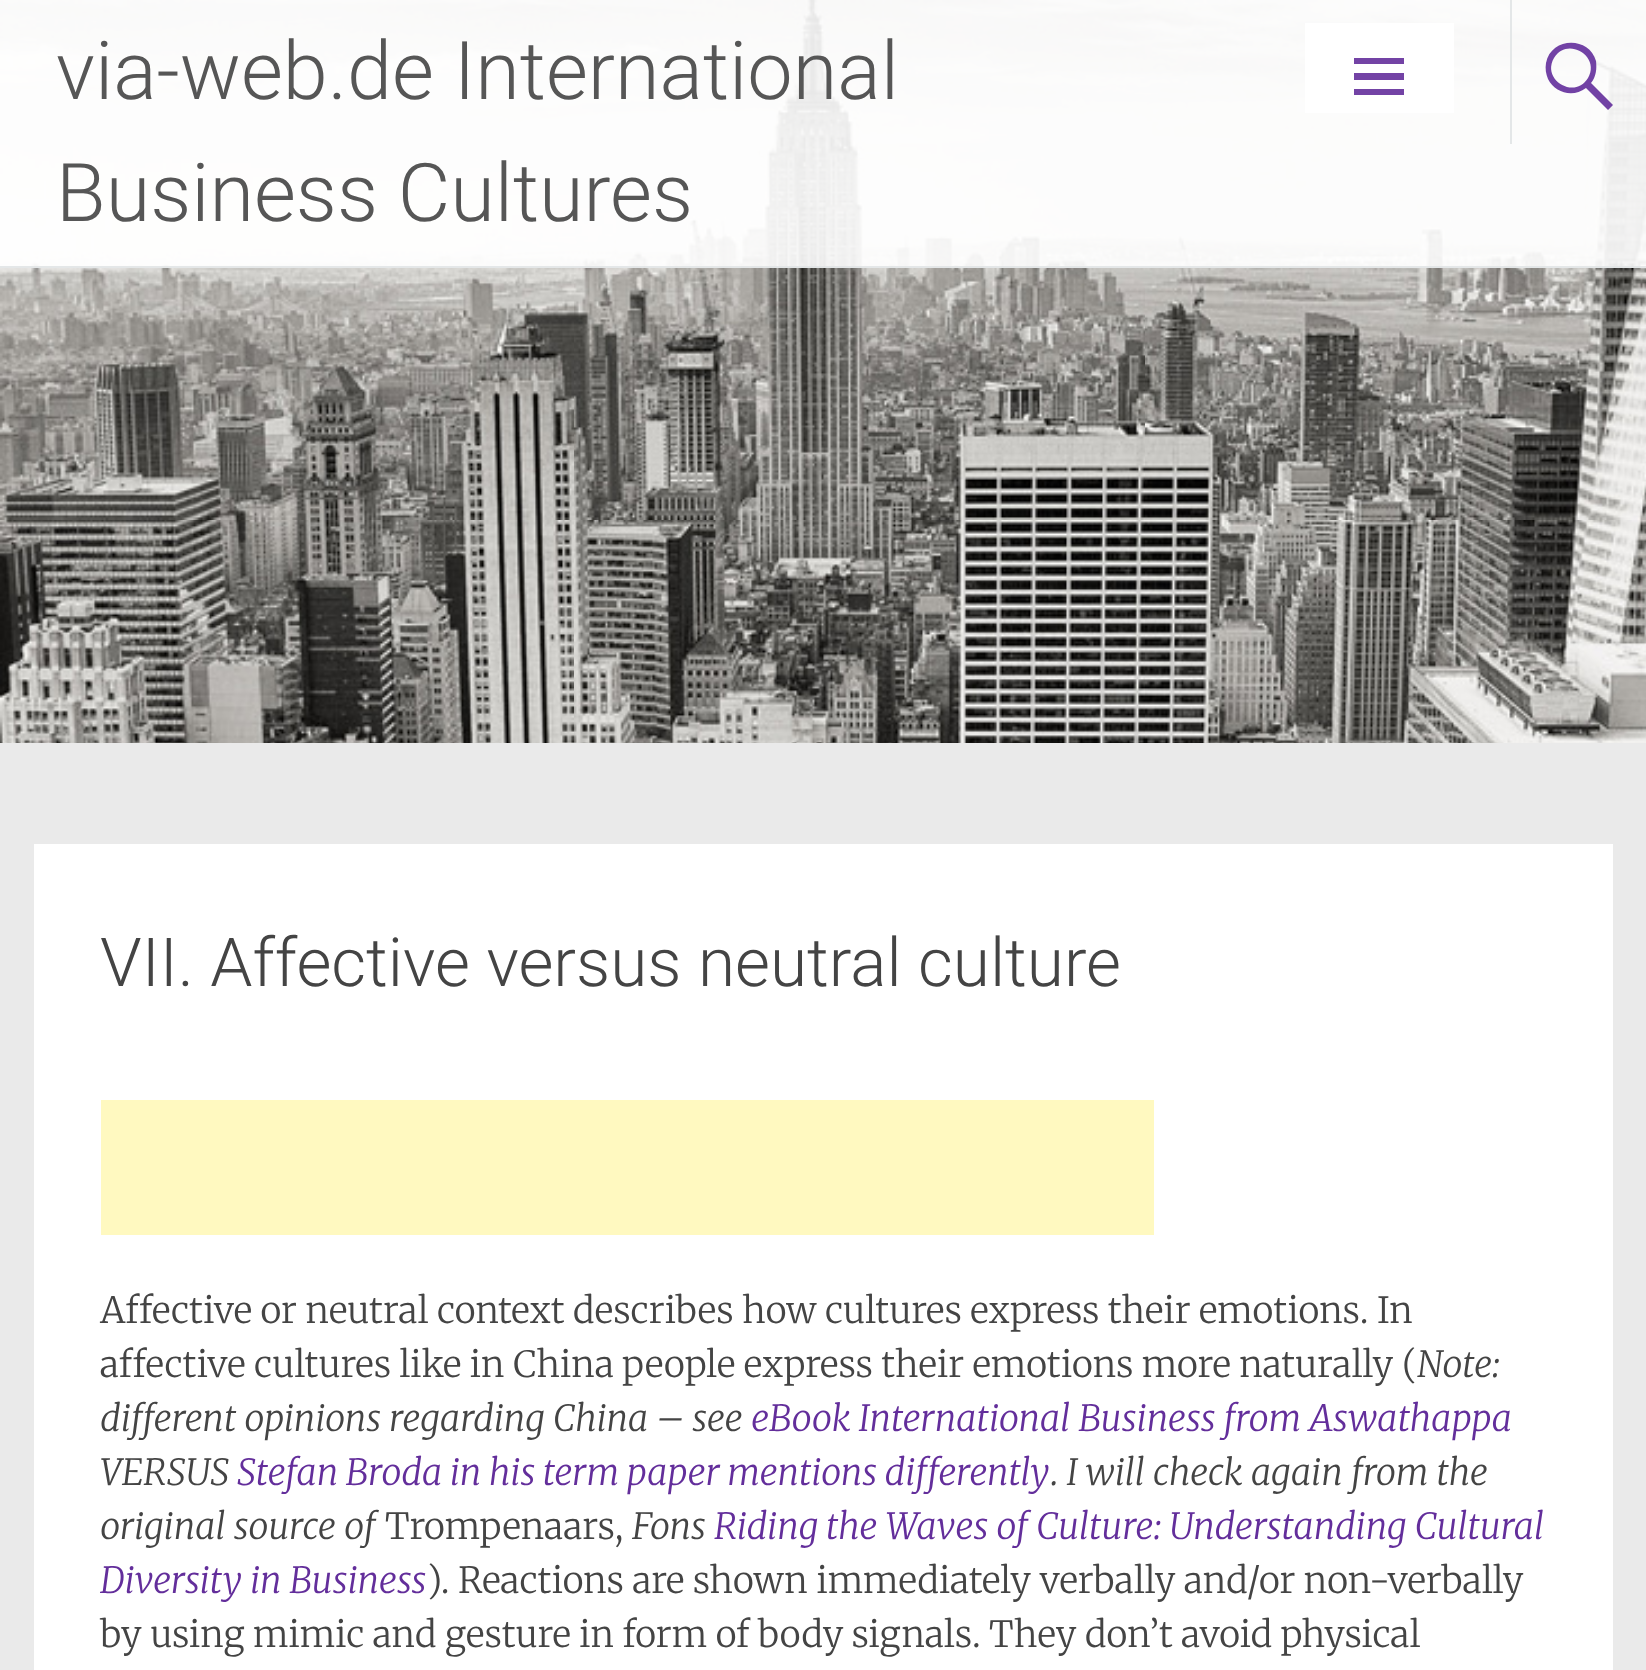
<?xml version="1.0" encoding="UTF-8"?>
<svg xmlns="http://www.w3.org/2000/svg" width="1646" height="1670">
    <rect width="100%" height="100%" fill="#FFFFFF"/>
    <image x="0" y="0" width="1646" height="743" href="img_01.png"/>
    <rect x="0" y="0" width="1646" height="268" fill="#FFFFFF" fill-opacity="0.9"/>
    <rect x="0" y="266" width="1646" height="2" fill="#E1E4E6" fill-opacity="0.9"/>
    <text font-family="Roboto" font-size="81" font-weight="300" fill="#565656">
        <tspan x="56" y="99">via-web.de International</tspan>
        <tspan x="56" y="221">Business Cultures</tspan>
    </text>
    <rect x="1305" y="23" width="149" height="90" fill="#FFFFFF" fill-opacity="0.9"/>
    <path d="M 1354 95 V 89 H 1404 V 95 Z M 1354 58 H 1404 V 64 H 1354 Z M 1354 80 V 73 H 1404 V 80 Z" fill="#7343A5"/>
    <rect x="1510" y="0" width="2" height="144" fill="#E1E4E6" fill-opacity="0.9"/>
    <path d="M 1613 105 L 1608 110 L 1586 88 C 1573 98 1555 93 1548 79 C 1546 74 1545 69 1546 63 C 1551 37 1589 36 1596 61 C 1597 69 1596 77 1591 83 Z M 1554 58 C 1541 80 1575 100 1588 78 C 1601 56 1567 36 1554 58 Z" fill="#632E9B" fill-opacity="0.9"/>
    <rect x="0" y="743" width="1646" height="927" fill="#EAEAEA"/>
    <rect x="34" y="844" width="1579" height="826" fill="#FFFFFF"/>
    <text x="100" y="986" font-family="Roboto" font-size="67.5" font-weight="300" fill="#444444">VII. Affective versus neutral culture</text>
    <rect x="101" y="1100" width="1053" height="135" fill="#FFF9C0"/>
    <text font-family="Merriweather" font-size="36" font-weight="300" fill="#444444">
        <tspan x="100" y="1323">Affective or neutral context describes how cultures express their emotions. In</tspan>
        <tspan x="100" y="1377">affective cultures like in China people express their emotions more naturally (</tspan>
    </text>
    <text x="1417" y="1377" font-family="Merriweather" font-size="36" font-weight="300" font-style="italic" fill="#444444">Note:</text>
    <text x="100" y="1431" font-family="Merriweather" font-size="36" font-weight="300" font-style="italic" fill="#444444">different opinions regarding China – see</text>
    <text x="751" y="1431" font-family="Merriweather" font-size="36" font-weight="300" font-style="italic" fill="#632E9B">eBook International Business from Aswathappa</text>
    <text x="100" y="1485" font-family="Merriweather" font-size="36" font-weight="300" font-style="italic" fill="#444444">VERSUS</text>
    <text x="237" y="1485" word-spacing="-0.5" font-family="Merriweather" font-size="36" font-weight="300" font-style="italic" fill="#632E9B">Stefan Broda in his term paper mentions differently</text>
    <text x="1051" y="1485" font-family="Merriweather" font-size="36" font-weight="300" font-style="italic" fill="#444444">. I will check again from the</text>
    <text x="100" y="1539" font-family="Merriweather" font-size="36" font-weight="300" font-style="italic" fill="#444444">original source of</text>
    <text x="385" y="1539" font-family="Merriweather" font-size="36" font-weight="300" fill="#444444">Trompenaars,</text>
    <text x="632" y="1539" font-family="Merriweather" font-size="36" font-weight="300" font-style="italic" fill="#444444">Fons</text>
    <text x="714" y="1539" font-family="Merriweather" font-size="36" font-weight="300" font-style="italic" fill="#632E9B">Riding the Waves of Culture: Understanding Cultural</text>
    <text x="100" y="1593" font-family="Merriweather" font-size="36" font-weight="300" font-style="italic" fill="#632E9B">Diversity in Business</text>
    <text x="427" y="1593" font-family="Merriweather" font-size="36" font-weight="300" fill="#444444">). Reactions are shown immediately verbally and/or non-verbally</text>
    <text x="100" y="1647" font-family="Merriweather" font-size="36" font-weight="300" fill="#444444">by using mimic and gesture in form of body signals. They don’t avoid physical</text>
</svg>
